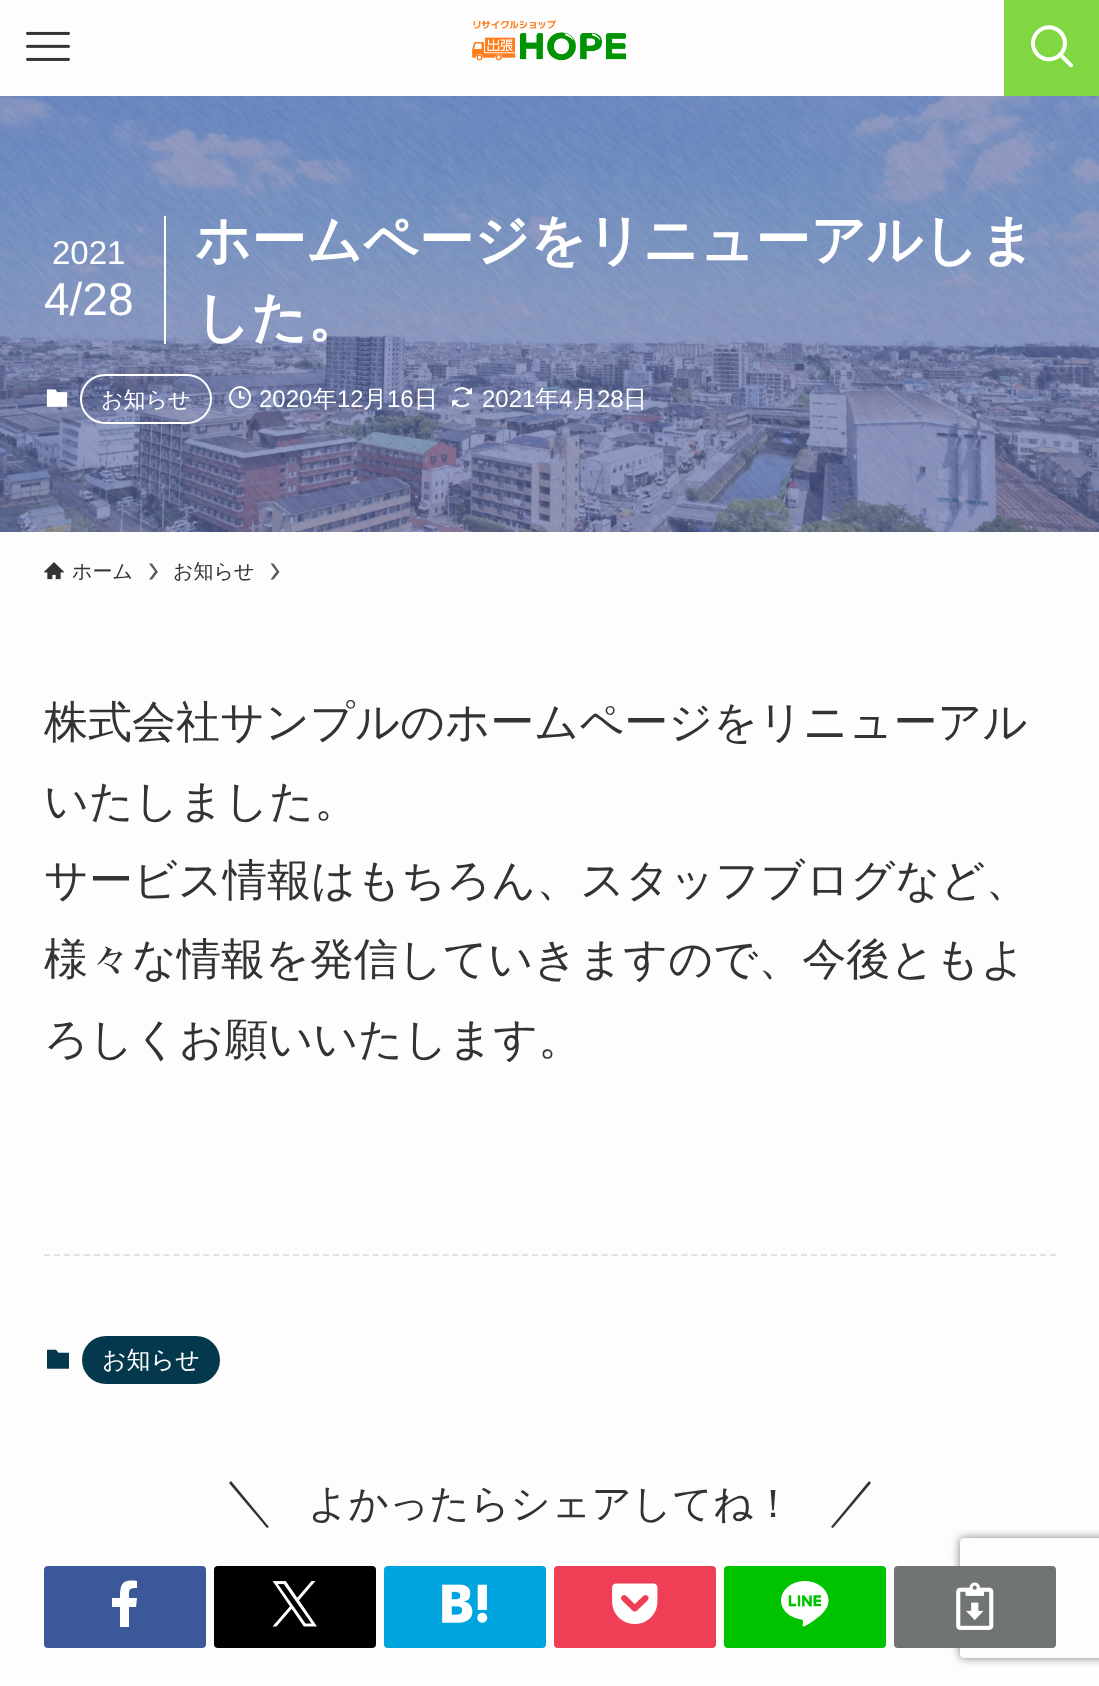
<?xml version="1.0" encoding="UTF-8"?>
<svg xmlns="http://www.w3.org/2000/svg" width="1099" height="1686">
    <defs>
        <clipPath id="clip1"><path d="M 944 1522 H 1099 V 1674 H 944 Z M 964 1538 H 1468 C 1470 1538 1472 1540 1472 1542 V 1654 C 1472 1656 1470 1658 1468 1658 H 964 C 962 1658 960 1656 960 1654 V 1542 C 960 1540 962 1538 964 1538 Z" clip-rule="evenodd"/></clipPath>
        <filter id="blur1" x="-50%" y="-200%" width="200%" height="500%"><feGaussianBlur stdDeviation="5"/></filter>
    </defs>
    <rect width="100%" height="100%" fill="#FDFDFD"/>
    <image x="26" y="31" width="44" height="30" href="img_01.png"/>
    <image x="472" y="20" width="155" height="41" href="img_02.png"/>
    <rect x="1004" y="0" width="95" height="96" fill="#81D742"/>
    <image x="1031" y="25" width="43" height="43" href="img_03.png"/>
    <image x="0" y="96" width="1099" height="436" href="img_04.png"/>
    <image x="0" y="96" width="1099" height="436" href="img_05.png"/>
    <rect x="164" y="216" width="2" height="128" fill="#FFFFFF"/>
    <text x="52" y="264" font-family="Liberation Sans" font-size="33" fill="#FFFFFF">2021</text>
    <text x="44" y="315" font-family="Liberation Sans" font-size="46" fill="#FFFFFF">4/28</text>
    <text font-family="WenQuanYi Zen Hei" font-size="55" font-weight="700" fill="#FFFFFF">
        <tspan x="195" y="259">ホームページをリニューアルしま</tspan>
        <tspan x="195" y="336">した。</tspan>
    </text>
    <image x="46" y="389" width="22" height="18" href="img_06.png"/>
    <rect x="81" y="375" width="130" height="48" rx="24" fill="none" stroke="#FFFFFF" stroke-width="2"/>
    <text x="101" y="407" font-family="WenQuanYi Zen Hei" font-size="22" font-weight="500" fill="#FFFFFF">お知らせ</text>
    <image x="229" y="386" width="22" height="23" href="img_07.png"/>
    <text x="259" y="407" font-family="Liberation Sans" font-size="24" fill="#FFFFFF">2020</text>
    <text x="313" y="407" font-family="WenQuanYi Zen Hei" font-size="24" font-weight="500" fill="#FFFFFF">年</text>
    <text x="337" y="407" font-family="Liberation Sans" font-size="24" fill="#FFFFFF">12</text>
    <text x="363" y="407" font-family="WenQuanYi Zen Hei" font-size="24" font-weight="500" fill="#FFFFFF">月</text>
    <text x="387" y="407" font-family="Liberation Sans" font-size="24" fill="#FFFFFF">16</text>
    <text x="414" y="407" font-family="WenQuanYi Zen Hei" font-size="24" font-weight="500" fill="#FFFFFF">日</text>
    <image x="452" y="387" width="20" height="21" href="img_08.png"/>
    <text x="482" y="407" font-family="Liberation Sans" font-size="24" fill="#FFFFFF">2021</text>
    <text x="535" y="407" font-family="WenQuanYi Zen Hei" font-size="24" font-weight="500" fill="#FFFFFF">年</text>
    <text x="559" y="407" font-family="Liberation Sans" font-size="24" fill="#FFFFFF">4</text>
    <text x="573" y="407" font-family="WenQuanYi Zen Hei" font-size="24" font-weight="500" fill="#FFFFFF">月</text>
    <text x="597" y="407" font-family="Liberation Sans" font-size="24" fill="#FFFFFF">28</text>
    <text x="623" y="407" font-family="WenQuanYi Zen Hei" font-size="24" font-weight="500" fill="#FFFFFF">日</text>
    <image x="44" y="562" width="20" height="18" href="img_09.png"/>
    <text x="72" y="578" font-family="WenQuanYi Zen Hei" font-size="20" font-weight="500" fill="#333333">ホーム</text>
    <path d="M 152 563.5 H 149 L 155 571.5 L 149 579.5 H 152 L 158 572 Z" fill="#5B5B5B"/>
    <text x="173" y="578" font-family="WenQuanYi Zen Hei" font-size="20" font-weight="500" fill="#333333">お知らせ</text>
    <path d="M 273.5 563.5 H 270.5 L 276.5 571.5 L 270.5 579.5 H 273.5 L 279.5 572 Z" fill="#5B5B5B"/>
    <text font-family="WenQuanYi Zen Hei" font-size="44" font-weight="500" fill="#333333">
        <tspan x="44" y="737">株式会社サンプルのホームページをリニューアル</tspan>
        <tspan x="44" y="816">いたしました。</tspan>
        <tspan x="44" y="895">サービス情報はもちろん、スタッフブログなど、</tspan>
        <tspan x="44" y="974">様々な情報を発信していきますので、今後ともよ</tspan>
        <tspan x="44" y="1054">ろしくお願いいたします。</tspan>
    </text>
    <path d="M 44 1255 H 1056" fill="none" stroke="#E2E2E2" stroke-width="2" stroke-dasharray="6 3.96"/>
    <image x="47" y="1349" width="22" height="20" href="img_10.png"/>
    <rect x="82" y="1336" width="138" height="48" rx="24" fill="#04384C"/>
    <text x="102" y="1368" font-family="WenQuanYi Zen Hei" font-size="24" font-weight="500" fill="#FFFFFF">お知らせ</text>
    <path d="M 229 1483 L 231 1481 L 269 1527 L 267 1528 Z" fill="#333333"/>
    <text x="308" y="1517" font-family="WenQuanYi Zen Hei" font-size="39.6" font-weight="500" fill="#333333">よかったらシェアしてね！</text>
    <path d="M 869 1481 L 871 1483 L 833 1528 L 831 1527 Z" fill="#333333"/>
    <rect x="44" y="1566" width="162" height="82" rx="4" fill="#3B5998"/>
    <path d="M 136 1607 L 137 1598 H 129 C 129 1590 128 1588 137 1588 V 1581 C 122 1579 120 1584 120 1598 H 112 V 1607 H 120 V 1627 H 129 V 1607 Z" fill="#FFFFFF"/>
    <rect x="214" y="1566" width="162" height="82" rx="4" fill="#000000"/>
    <image x="272" y="1581" width="45" height="46" href="img_11.png"/>
    <rect x="384" y="1566" width="162" height="82" rx="4" fill="#00A4DE"/>
    <image x="442" y="1584" width="46" height="39" href="img_12.png"/>
    <rect x="554" y="1566" width="162" height="82" rx="4" fill="#EF3F56"/>
    <image x="612" y="1583" width="46" height="41" href="img_13.png"/>
    <rect x="724" y="1566" width="162" height="82" rx="4" fill="#00C300"/>
    <image x="781" y="1581" width="48" height="46" href="img_14.png"/>
    <g clip-path="url(#clip1)">
        <rect x="960" y="1538" width="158" height="120" rx="4" fill="#808080" filter="url(#blur1)"/>
    </g>
    <rect x="894" y="1566" width="162" height="82" rx="4" fill="#717475"/>
    <image x="956" y="1582" width="38" height="48" href="img_15.png"/>
</svg>
